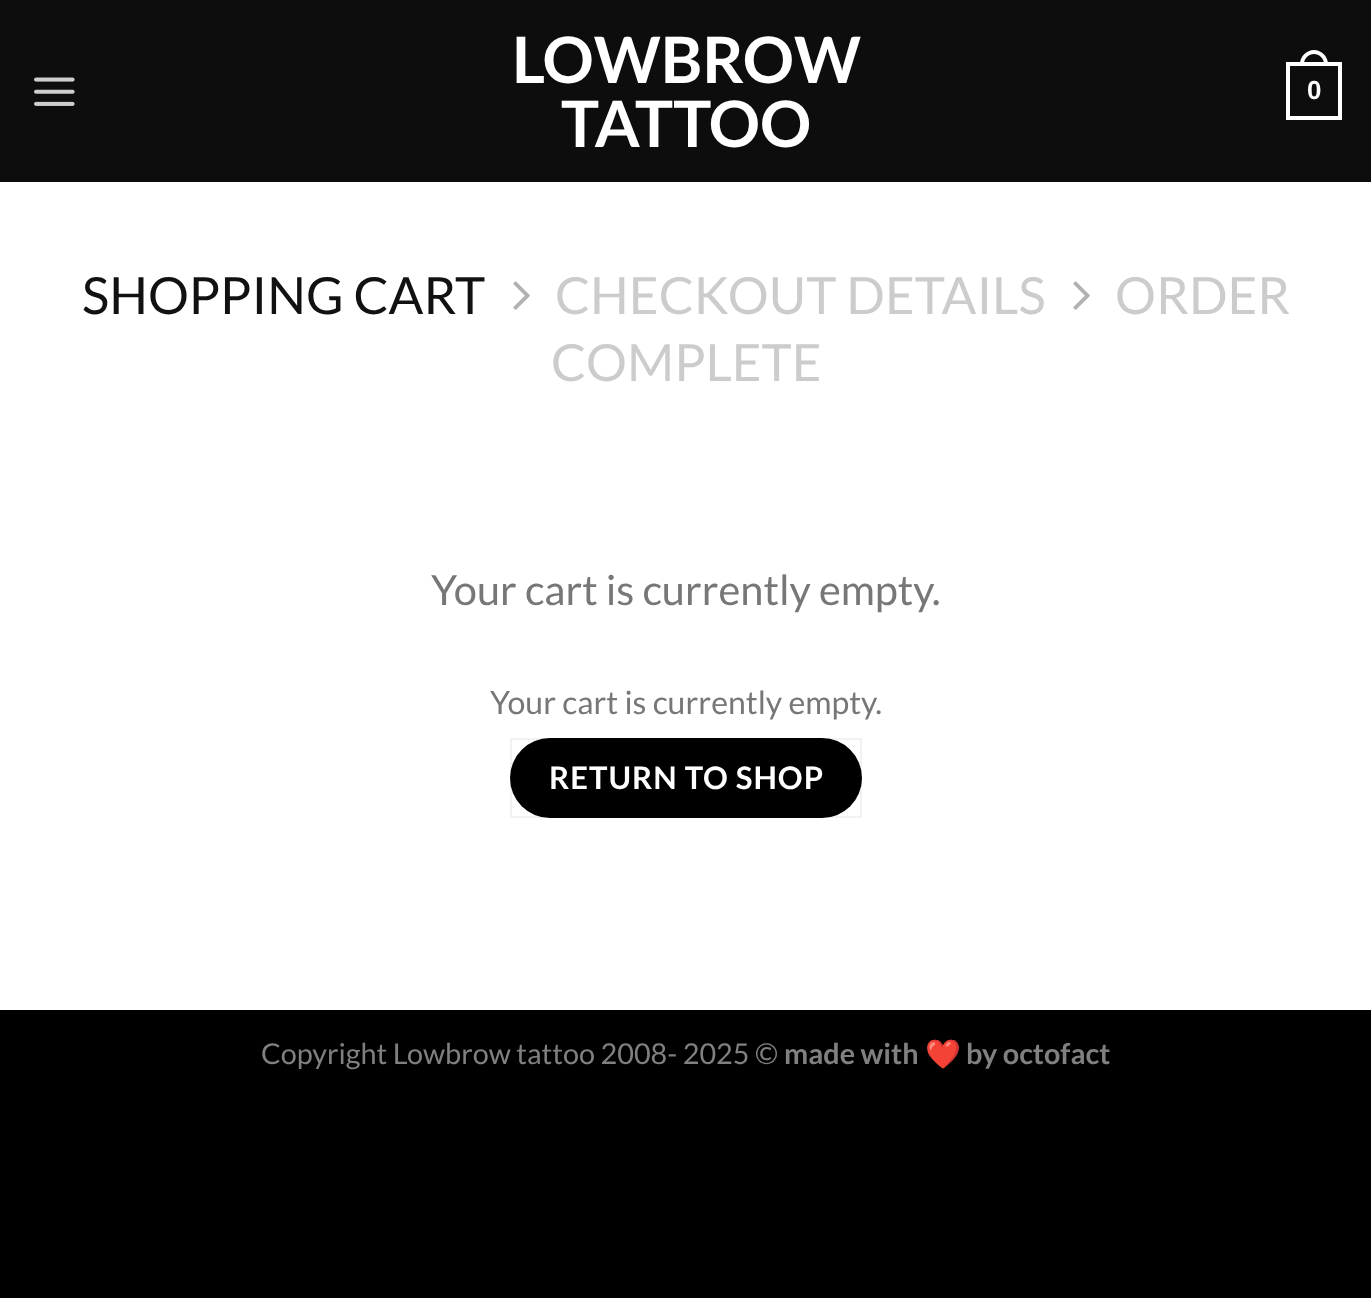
<?xml version="1.0" encoding="UTF-8"?>
<svg xmlns="http://www.w3.org/2000/svg" width="1371" height="1298">
    <rect width="100%" height="100%" fill="#000000"/>
    <rect x="0" y="182" width="1371" height="828" fill="#FFFFFF"/>
    <rect x="0" y="0" width="1371" height="182" fill="#0D0D0D"/>
    <image x="34" y="77" width="41" height="29" href="img_01.png"/>
    <text x="512" y="83" font-family="Lato" font-size="64" font-weight="700" fill="#FFFFFF">LOWBROW</text>
    <text x="561" y="147" font-family="Lato" font-size="64" font-weight="700" fill="#FFFFFF">TATTOO</text>
    <rect x="1288" y="64" width="52" height="54" fill="none" stroke="#FFFFFF" stroke-width="4"/>
    <path d="M 1314 50 C 1321.5 50 1328 56.5 1328 64 V 66 H 1300 V 64 C 1300 56.5 1306.5 50 1314 50 Z M 1314 54 C 1319.5 54 1324 58.5 1324 64 V 66 H 1304 V 64 C 1304 58.5 1308.5 54 1314 54 Z" fill="#FFFFFF" fill-rule="evenodd"/>
    <text x="1307" y="99" font-family="Liberation Sans" font-size="26" font-weight="700" fill="#FFFFFF">0</text>
    <text x="82" y="314" font-family="Lato" font-size="51.25" fill="#111111">SHOPPING CART</text>
    <image x="513" y="281" width="17" height="29" href="img_02.png"/>
    <text x="555" y="314" font-family="Lato" font-size="51.25" fill="#CCCCCC">CHECKOUT DETAILS</text>
    <image x="1073" y="281" width="17" height="29" href="img_02.png"/>
    <text x="1115" y="314" font-family="Lato" font-size="51.25" fill="#CCCCCC">ORDER</text>
    <text x="551" y="381" font-family="Lato" font-size="51.25" fill="#CCCCCC">COMPLETE</text>
    <text x="431" y="605" font-family="Lato" font-size="41.6" fill="#777777">Your cart is currently empty.</text>
    <text x="490" y="714" font-family="Lato" font-size="32" fill="#777777">Your cart is currently empty.</text>
    <rect x="510" y="738" width="352" height="80" rx="40" fill="#000000"/>
    <rect x="511" y="739" width="350" height="78" fill="none" stroke="#000000" stroke-opacity="0.05" stroke-width="2"/>
    <text x="549" y="789" font-family="Lato" font-size="31" font-weight="700" letter-spacing="1" fill="#FFFFFF">RETURN TO SHOP</text>
    <text x="261" y="1064" font-family="Lato" font-size="28.75" fill="#808080">Copyright Lowbrow tattoo 2008- 2025 ©</text>
    <text x="784" y="1064" font-family="Lato" font-size="28.75" font-weight="700" fill="#808080">made with</text>
    <text x="925" y="1064" font-family="Noto Color Emoji" font-size="28.75" font-weight="700" fill="#808080">❤️</text>
    <text x="966" y="1064" font-family="Lato" font-size="28.75" font-weight="700" fill="#808080">by octofact</text>
</svg>
